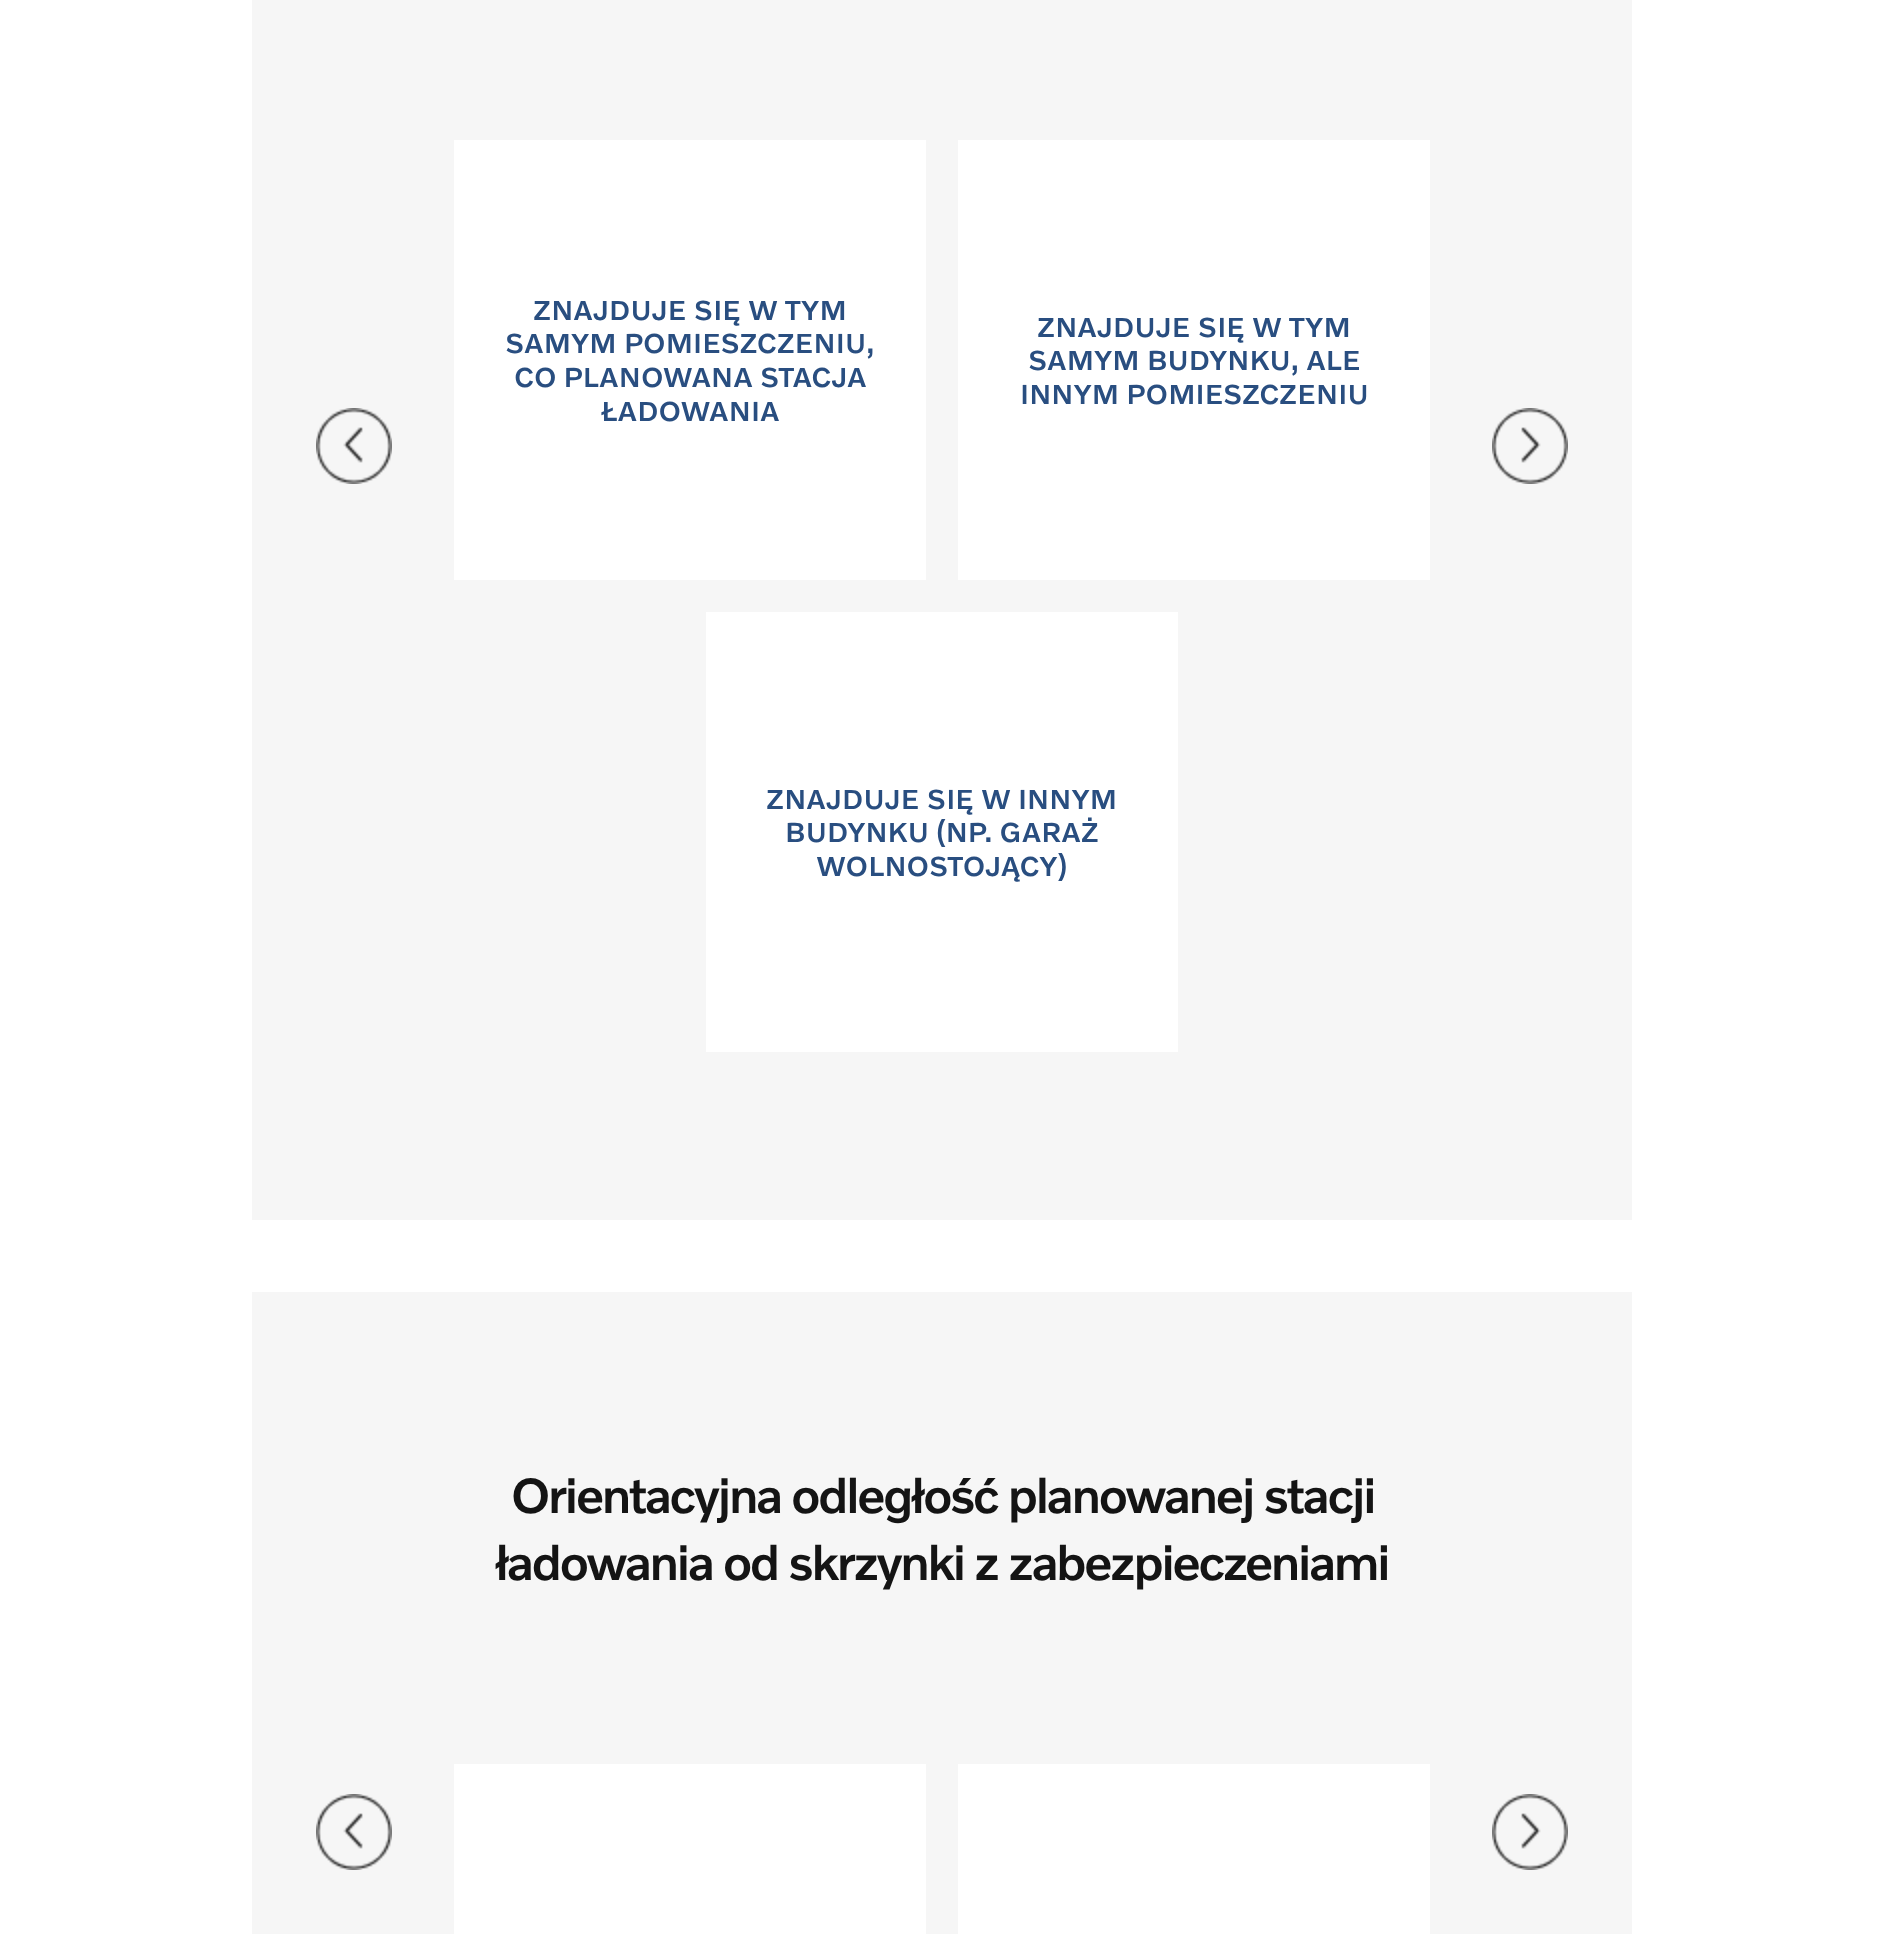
<?xml version="1.0" encoding="UTF-8"?>
<svg xmlns="http://www.w3.org/2000/svg" width="1883" height="1934">
    <rect width="100%" height="100%" fill="#FFFFFF"/>
    <rect x="252" y="0" width="1380" height="1220" fill="#F6F6F6"/>
    <image x="316" y="408" width="76" height="76" href="img_01.png"/>
    <rect x="454" y="140" width="472" height="440" fill="#FFFFFF"/>
    <text x="533" y="320" font-family="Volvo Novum" font-size="28" font-weight="500" fill="#294E80">ZNAJDUJE SIĘ W TYM</text>
    <text x="505" y="353" font-family="Volvo Novum" font-size="28" font-weight="500" fill="#294E80">SAMYM POMIESZCZENIU,</text>
    <text x="514" y="387" font-family="Volvo Novum" font-size="28" font-weight="500" fill="#294E80">CO PLANOWANA STACJA</text>
    <text x="601" y="421" font-family="Volvo Novum" font-size="28" font-weight="500" fill="#294E80">ŁADOWANIA</text>
    <rect x="958" y="140" width="472" height="440" fill="#FFFFFF"/>
    <text x="1037" y="337" font-family="Volvo Novum" font-size="28" font-weight="500" fill="#294E80">ZNAJDUJE SIĘ W TYM</text>
    <text x="1028" y="370" font-family="Volvo Novum" font-size="28" font-weight="500" fill="#294E80">SAMYM BUDYNKU, ALE</text>
    <text x="1020" y="404" font-family="Volvo Novum" font-size="28" font-weight="500" fill="#294E80">INNYM POMIESZCZENIU</text>
    <rect x="706" y="612" width="472" height="440" fill="#FFFFFF"/>
    <text x="766" y="809" font-family="Volvo Novum" font-size="28" font-weight="500" fill="#294E80">ZNAJDUJE SIĘ W INNYM</text>
    <text x="785" y="842" font-family="Volvo Novum" font-size="28" font-weight="500" fill="#294E80">BUDYNKU (NP. GARAŻ</text>
    <text x="816" y="876" font-family="Volvo Novum" font-size="28" font-weight="500" fill="#294E80">WOLNOSTOJĄCY)</text>
    <image x="1492" y="408" width="76" height="76" href="img_02.png"/>
    <rect x="252" y="1292" width="1380" height="642" fill="#F6F6F6"/>
    <text x="511" y="1513" font-family="Volvo Novum" font-size="50" font-weight="500" letter-spacing="-2.25" fill="#141414">Orientacyjna odległość planowanej stacji</text>
    <text x="495" y="1580" font-family="Volvo Novum" font-size="50" font-weight="500" letter-spacing="-2.25" fill="#141414">ładowania od skrzynki z zabezpieczeniami</text>
    <image x="316" y="1794" width="76" height="76" href="img_01.png"/>
    <rect x="454" y="1764" width="472" height="170" fill="#FFFFFF"/>
    <rect x="958" y="1764" width="472" height="170" fill="#FFFFFF"/>
    <image x="1492" y="1794" width="76" height="76" href="img_02.png"/>
</svg>
